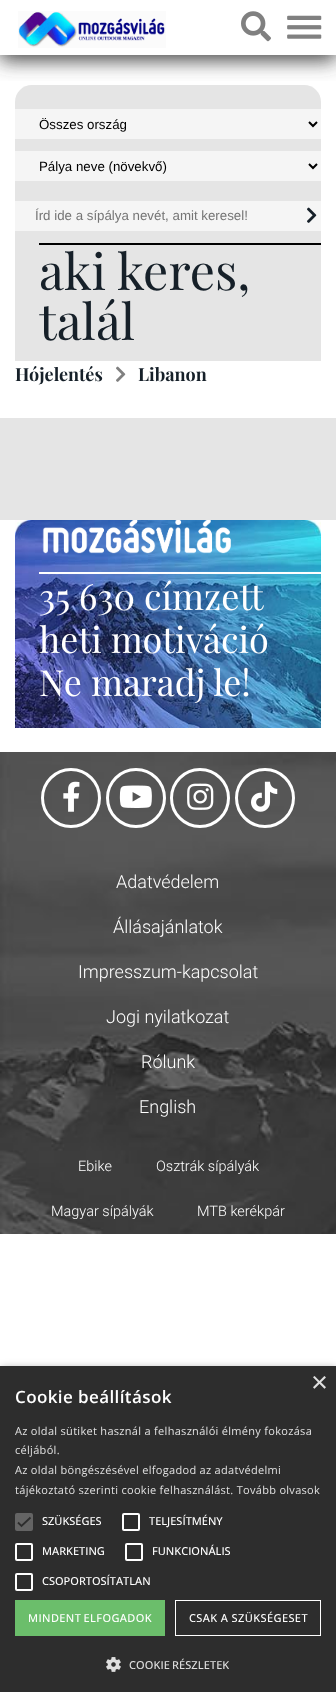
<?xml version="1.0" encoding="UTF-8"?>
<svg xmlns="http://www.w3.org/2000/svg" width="336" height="1692">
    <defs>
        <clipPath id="clip1"><rect x="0" y="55" width="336" height="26"/></clipPath>
        <filter id="blur1" x="-50%" y="-200%" width="200%" height="500%"><feGaussianBlur stdDeviation="10"/></filter>
        <filter id="blur2" x="-50%" y="-200%" width="200%" height="500%"><feGaussianBlur stdDeviation="4"/></filter>
    </defs>
    <rect width="100%" height="100%" fill="#FFFFFF"/>
    <path d="M 32 85 H 304 C 313.5 85 321 92.5 321 102 V 361 H 15 V 102 C 15 92.5 22.5 85 32 85 Z" fill="#E5E5E5"/>
    <g clip-path="url(#clip1)">
        <rect x="0" y="5" width="336" height="55" fill="#404040" filter="url(#blur1)"/>
    </g>
    <image x="18" y="11" width="148" height="37" href="img_01.png"/>
    <image x="241" y="11" width="30" height="31" href="img_02.png"/>
    <image x="287" y="15" width="35" height="24" href="img_03.png"/>
    <rect x="15" y="109" width="306" height="30" fill="#F5F5F5"/>
    <path d="M 309 122 L 313 126 L 317 122" fill="none" stroke="#000000" stroke-width="2"/>
    <text x="39" y="129" font-family="Liberation Sans" font-size="13.3" fill="#000000">Összes ország</text>
    <rect x="15" y="151" width="306" height="30" fill="#F5F5F5"/>
    <path d="M 309 164 L 313 168 L 317 164" fill="none" stroke="#000000" stroke-width="2"/>
    <text x="39" y="171" font-family="Liberation Sans" font-size="13.3" fill="#000000">Pálya neve (növekvő)</text>
    <rect x="15" y="201" width="306" height="30" fill="#F5F5F5"/>
    <text x="35" y="220" font-family="Liberation Sans" font-size="13.3" fill="#757575">Írd ide a sípálya nevét, amit keresel!</text>
    <image x="307" y="207" width="10" height="16" href="img_04.png"/>
    <rect x="39" y="243" width="282" height="2" fill="#000000"/>
    <text font-family="Playfair Display" font-size="50" fill="#162029">
        <tspan x="39" y="290">aki keres,</tspan>
        <tspan x="39" y="340">talál</tspan>
    </text>
    <text x="15" y="381" font-family="Playfair Display" font-size="18" font-weight="700" fill="#162029">Hójelentés</text>
    <image x="116" y="366" width="10" height="16" href="img_05.png"/>
    <text x="138" y="381" font-family="Playfair Display" font-size="18" font-weight="700" fill="#162029">Libanon</text>
    <rect x="0" y="418" width="336" height="102" fill="#E5E5E5"/>
    <image x="15" y="520" width="306" height="208" href="img_06.png"/>
    <image x="42" y="520" width="189" height="34" href="img_07.png"/>
    <rect x="39" y="572" width="282" height="2" fill="#FFFFFF"/>
    <text font-family="Playfair Display" font-size="36" fill="#FFFFFF">
        <tspan x="39" y="610">35 630 címzett</tspan>
        <tspan x="39" y="653">heti motiváció</tspan>
        <tspan x="39" y="696">Ne maradj le!</tspan>
    </text>
    <image x="0" y="752" width="336" height="482" href="img_08.png"/>
    <circle cx="71" cy="798" r="28.5" fill="none" stroke="#FFFFFF" stroke-width="3"/>
    <image x="63" y="781" width="17" height="31" href="img_09.png"/>
    <circle cx="136" cy="798" r="28.5" fill="none" stroke="#FFFFFF" stroke-width="3"/>
    <image x="119" y="785" width="33" height="23" href="img_10.png"/>
    <circle cx="200" cy="798" r="28.5" fill="none" stroke="#FFFFFF" stroke-width="3"/>
    <image x="187" y="783" width="27" height="27" href="img_11.png"/>
    <circle cx="265" cy="798" r="28.5" fill="none" stroke="#FFFFFF" stroke-width="3"/>
    <image x="251" y="781" width="27" height="31" href="img_12.png"/>
    <text x="116" y="888" font-family="Roboto" font-size="18" font-weight="300" fill="#FFFFFF">Adatvédelem</text>
    <text x="113" y="933" font-family="Roboto" font-size="18" font-weight="300" fill="#FFFFFF">Állásajánlatok</text>
    <text x="78" y="978" font-family="Roboto" font-size="18" font-weight="300" fill="#FFFFFF">Impresszum-kapcsolat</text>
    <text x="106" y="1023" font-family="Roboto" font-size="18" font-weight="300" fill="#FFFFFF">Jogi nyilatkozat</text>
    <text x="141" y="1068" font-family="Roboto" font-size="18" font-weight="300" fill="#FFFFFF">Rólunk</text>
    <text x="139" y="1113" font-family="Roboto" font-size="18" font-weight="300" fill="#FFFFFF">English</text>
    <text x="78" y="1171" font-family="Roboto" font-size="14.5" font-weight="300" fill="#FFFFFF">Ebike</text>
    <text x="156" y="1171" font-family="Roboto" font-size="14.5" font-weight="300" fill="#FFFFFF">Osztrák sípályák</text>
    <text x="51" y="1216" font-family="Roboto" font-size="14.5" font-weight="300" fill="#FFFFFF">Magyar sípályák</text>
    <text x="197" y="1216" font-family="Roboto" font-size="14.5" font-weight="300" fill="#FFFFFF">MTB kerékpár</text>
    <rect x="1" y="1368" width="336" height="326" fill="#000000" fill-opacity="0.35" filter="url(#blur2)"/>
    <rect x="0" y="1366" width="336" height="326" fill="#2D2D2D"/>
    <text x="311" y="1392" font-family="Liberation Sans" font-size="29" fill="#E0E0E0">×</text>
    <text x="15" y="1403" font-family="Open Sans" font-size="17" font-weight="600" letter-spacing="0.4" fill="#FFFFFF">Cookie beállítások</text>
    <text font-family="Open Sans" font-size="11" letter-spacing="0.3" fill="#E0E0E0">
        <tspan x="15" y="1435">Az oldal sütiket használ a felhasználói élmény fokozása</tspan>
        <tspan x="15" y="1454">céljából.</tspan>
        <tspan x="15" y="1474">Az oldal böngészésével elfogadod az adatvédelmi</tspan>
        <tspan x="15" y="1494">tájékoztató szerinti cookie felhasználást. Tovább olvasok</tspan>
    </text>
    <rect x="15" y="1513" width="18" height="18" rx="2" fill="#646464"/>
    <path d="M 18 1522.5 L 21.5 1526 L 30.5 1517.5" fill="none" stroke="#2D2D2D" stroke-width="1.8"/>
    <text x="42" y="1525" font-family="Open Sans" font-size="11" font-weight="500" fill="#FFFFFF">SZÜKSÉGES</text>
    <rect x="123" y="1514" width="16" height="16" rx="1" fill="none" stroke="#FFFFFF" stroke-width="2"/>
    <text x="149" y="1525" font-family="Open Sans" font-size="11" font-weight="500" fill="#FFFFFF">TELJESÍTMÉNY</text>
    <rect x="16" y="1544" width="16" height="16" rx="1" fill="none" stroke="#FFFFFF" stroke-width="2"/>
    <text x="42" y="1555" font-family="Open Sans" font-size="11" font-weight="500" fill="#FFFFFF">MARKETING</text>
    <rect x="126" y="1544" width="16" height="16" rx="1" fill="none" stroke="#FFFFFF" stroke-width="2"/>
    <text x="152" y="1555" font-family="Open Sans" font-size="11" font-weight="500" fill="#FFFFFF">FUNKCIONÁLIS</text>
    <rect x="16" y="1574" width="16" height="16" rx="1" fill="none" stroke="#FFFFFF" stroke-width="2"/>
    <text x="42" y="1585" font-family="Open Sans" font-size="11" font-weight="500" fill="#FFFFFF">CSOPORTOSÍTATLAN</text>
    <rect x="15" y="1600" width="150" height="36" fill="#6BBE6B"/>
    <text x="28" y="1622" word-spacing="-1" font-family="Open Sans" font-size="11" font-weight="500" letter-spacing="0.4" fill="#FFFFFF">MINDENT ELFOGADOK</text>
    <rect x="175.5" y="1600.5" width="145" height="35" fill="none" stroke="#FFFFFF"/>
    <text x="189" y="1622" font-family="Open Sans" font-size="11" font-weight="500" letter-spacing="0.4" fill="#FFFFFF">CSAK A SZÜKSÉGESET</text>
    <image x="106" y="1657" width="15" height="15" href="img_13.png"/>
    <text x="129" y="1669" word-spacing="-1" font-family="Open Sans" font-size="11" font-weight="500" letter-spacing="0.1" fill="#E0E0E0">COOKIE RÉSZLETEK</text>
</svg>
